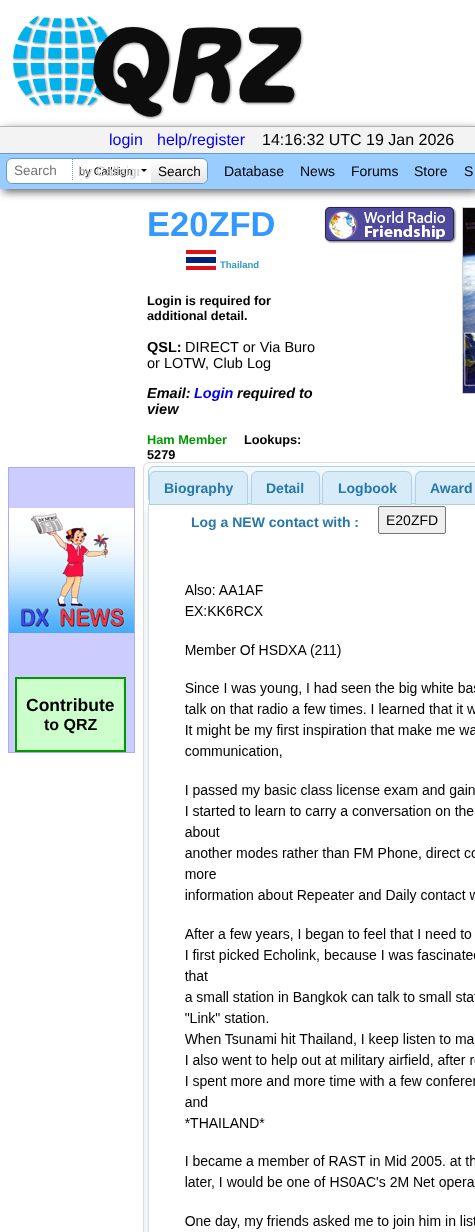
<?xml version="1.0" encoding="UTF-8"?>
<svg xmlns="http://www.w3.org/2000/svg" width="475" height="1232">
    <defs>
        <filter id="blur1" x="-50%" y="-200%" width="200%" height="500%"><feGaussianBlur stdDeviation="4"/></filter>
        <clipPath id="clip1"><rect x="78" y="163" width="61" height="17"/></clipPath>
        <linearGradient id="g1" gradientUnits="userSpaceOnUse" x1="179" y1="159" x2="179" y2="183"><stop offset="0" stop-color="#FFFFFF"/><stop offset="1" stop-color="#E5E5E5"/></linearGradient>
        <filter id="blur2" x="-50%" y="-200%" width="200%" height="500%"><feGaussianBlur stdDeviation="1"/></filter>
    </defs>
    <rect width="100%" height="100%" fill="#FFFFFF"/>
    <rect x="3" y="129" width="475" height="63" fill="#666666" filter="url(#blur1)"/>
    <image x="12" y="15" width="292" height="105" href="img_01.png"/>
    <rect x="0" y="127" width="475" height="26" fill="#F3F3F3"/>
    <rect x="0" y="126" width="475" height="1" fill="#B3B3B3"/>
    <text x="109" y="145" font-family="Liberation Sans" font-size="16" fill="#0000EE">login</text>
    <text x="157" y="145" font-family="Liberation Sans" font-size="16" fill="#0000EE">help/register</text>
    <text x="262" y="145" font-family="Liberation Sans" font-size="16" fill="#000000">14:16:32 UTC 19 Jan 2026</text>
    <rect x="0" y="154" width="475" height="35" fill="#99CCFF"/>
    <rect x="0" y="153" width="475" height="1" fill="#6699CC"/>
    <rect x="6.5" y="158.5" width="201" height="25" rx="5.5" fill="#FFFFFF" stroke="#6699CC"/>
    <path d="M 72.5 159 V 181" fill="none" stroke="#6699CC" stroke-dasharray="1 1"/>
    <text x="14" y="175" font-family="Liberation Sans" font-size="13.5" fill="#757575">Search</text>
    <text x="79" y="175" font-family="Liberation Sans" font-size="11" fill="#000000">by Callsign</text>
    <g clip-path="url(#clip1)">
        <text x="78" y="176" font-family="Liberation Sans" font-size="13.5" fill="#C7C7C7">by Callsign</text>
    </g>
    <path d="M 141 169 H 147 L 144 172 Z" fill="#000000"/>
    <path d="M 151 159 H 201 C 204.5 159 207 161.5 207 165 V 177 C 207 180.5 204.5 183 201 183 H 151 Z" fill="url(#g1)"/>
    <text x="158" y="176" font-family="Liberation Sans" font-size="13.5" fill="#000000">Search</text>
    <text x="224" y="176" font-family="Liberation Sans" font-size="14" fill="#000000">Database</text>
    <text x="300" y="176" font-family="Liberation Sans" font-size="14" fill="#000000">News</text>
    <text x="351" y="176" font-family="Liberation Sans" font-size="14" fill="#000000">Forums</text>
    <text x="414" y="176" font-family="Liberation Sans" font-size="14" fill="#000000">Store</text>
    <text x="464" y="176" font-family="Liberation Sans" font-size="14" fill="#000000">S</text>
    <text x="147" y="236" font-family="Liberation Sans" font-size="34.5" font-weight="700" fill="#3399FF">E20ZFD</text>
    <image x="186" y="250" width="30" height="20" href="img_02.png"/>
    <text x="220" y="268" font-family="Liberation Sans" font-size="9.5" font-weight="700" fill="#3399CC">Thailand</text>
    <text font-family="Liberation Sans" font-size="12.75" font-weight="700" fill="#000000">
        <tspan x="147" y="305">Login is required for</tspan>
        <tspan x="147" y="320">additional detail.</tspan>
    </text>
    <text x="147" y="352" font-family="Liberation Sans" font-size="14.5" font-weight="700" fill="#000000">QSL:</text>
    <text x="185" y="352" font-family="Liberation Sans" font-size="14.5" fill="#000000">DIRECT or Via Buro</text>
    <text x="147" y="368" font-family="Liberation Sans" font-size="14.5" fill="#000000">or LOTW, Club Log</text>
    <text x="147" y="398" font-family="Liberation Sans" font-size="14.5" font-weight="700" font-style="italic" fill="#000000">Email:</text>
    <text x="194" y="398" font-family="Liberation Sans" font-size="14.5" font-weight="700" font-style="italic" fill="#0000EE">Login</text>
    <text x="237" y="398" font-family="Liberation Sans" font-size="14.5" font-weight="700" font-style="italic" fill="#000000">required to</text>
    <text x="147" y="414" font-family="Liberation Sans" font-size="14.5" font-weight="700" font-style="italic" fill="#000000">view</text>
    <text x="147" y="444" font-family="Liberation Sans" font-size="12.75" font-weight="700" fill="#009900">Ham Member</text>
    <text x="244" y="444" font-family="Liberation Sans" font-size="12.75" font-weight="700" fill="#000000">Lookups:</text>
    <text x="147" y="459" font-family="Liberation Sans" font-size="12.75" font-weight="700" fill="#000000">5279</text>
    <rect x="326" y="208" width="129" height="34" rx="5" fill="#666666" filter="url(#blur2)"/>
    <rect x="325" y="207" width="129" height="34" rx="5" fill="#4F499D"/>
    <rect x="325.5" y="207.5" width="128" height="33" rx="4.5" fill="none" stroke="#000000" stroke-opacity="0.5"/>
    <image x="327" y="209" width="125" height="30" href="img_03.png"/>
    <rect x="462.5" y="207.5" width="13" height="186" fill="none" stroke="#CCCCCC"/>
    <image x="463" y="208" width="12" height="185" href="img_04.png"/>
    <rect x="143" y="462" width="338" height="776" rx="6" fill="#F2F5F7"/>
    <image x="143" y="463" width="332" height="49" href="img_05.png"/>
    <rect x="143.5" y="462.5" width="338" height="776" rx="5.5" fill="none" stroke="#DDDDDD"/>
    <image x="148" y="466" width="327" height="37" href="img_06.png"/>
    <rect x="148.5" y="466.5" width="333" height="37" rx="5.5" fill="none" stroke="#AED0EA"/>
    <rect x="148.5" y="504.5" width="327" height="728" fill="#FFFFFF" stroke="#DDDDDD"/>
    <path d="M 155 471.5 H 242 C 245 471.5 247.5 474 247.5 477 V 504.5 H 149.5 V 477 C 149.5 474 152 471.5 155 471.5 Z" fill="#D7EBF9" stroke="#AED0EA"/>
    <text x="164" y="493" font-family="Liberation Sans" font-size="14" font-weight="700" fill="#2779AA">Biography</text>
    <path d="M 257 471.5 H 314 C 317 471.5 319.5 474 319.5 477 V 504.5 H 251.5 V 477 C 251.5 474 254 471.5 257 471.5 Z" fill="#D7EBF9" stroke="#AED0EA"/>
    <text x="266" y="493" font-family="Liberation Sans" font-size="14" font-weight="700" fill="#2779AA">Detail</text>
    <path d="M 328 471.5 H 406 C 409 471.5 411.5 474 411.5 477 V 504.5 H 322.5 V 477 C 322.5 474 325 471.5 328 471.5 Z" fill="#D7EBF9" stroke="#AED0EA"/>
    <text x="338" y="493" font-family="Liberation Sans" font-size="14" font-weight="700" fill="#2779AA">Logbook</text>
    <path d="M 421 471.5 H 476 C 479 471.5 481.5 474 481.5 477 V 504.5 H 415.5 V 477 C 415.5 474 418 471.5 421 471.5 Z" fill="#D7EBF9" stroke="#AED0EA"/>
    <text x="430" y="493" font-family="Liberation Sans" font-size="14" font-weight="700" fill="#2779AA">Award</text>
    <text x="191" y="527" font-family="Liberation Sans" font-size="14" font-weight="700" fill="#2779AA">Log a NEW contact with :</text>
    <rect x="378.5" y="506.5" width="67" height="27" rx="1.5" fill="#EFEFEF" stroke="#767676"/>
    <text x="386" y="525" font-family="Liberation Sans" font-size="14" fill="#000000">E20ZFD</text>
    <image x="184" y="584" width="291" height="645" href="img_07.png"/>
    <rect x="8.5" y="467.5" width="126" height="285" fill="#CCCCFF" stroke="#AAAAFF"/>
    <image x="9" y="508" width="125" height="125" href="img_08.png"/>
    <rect x="16" y="678" width="109" height="73" fill="#CCFFCC" stroke="#009900" stroke-width="2"/>
    <text x="26" y="711" font-family="Liberation Sans" font-size="17.5" font-weight="700" fill="#000000">Contribute</text>
    <text x="44" y="730" font-family="Liberation Sans" font-size="16" font-weight="700" fill="#000000">to QRZ</text>
</svg>
